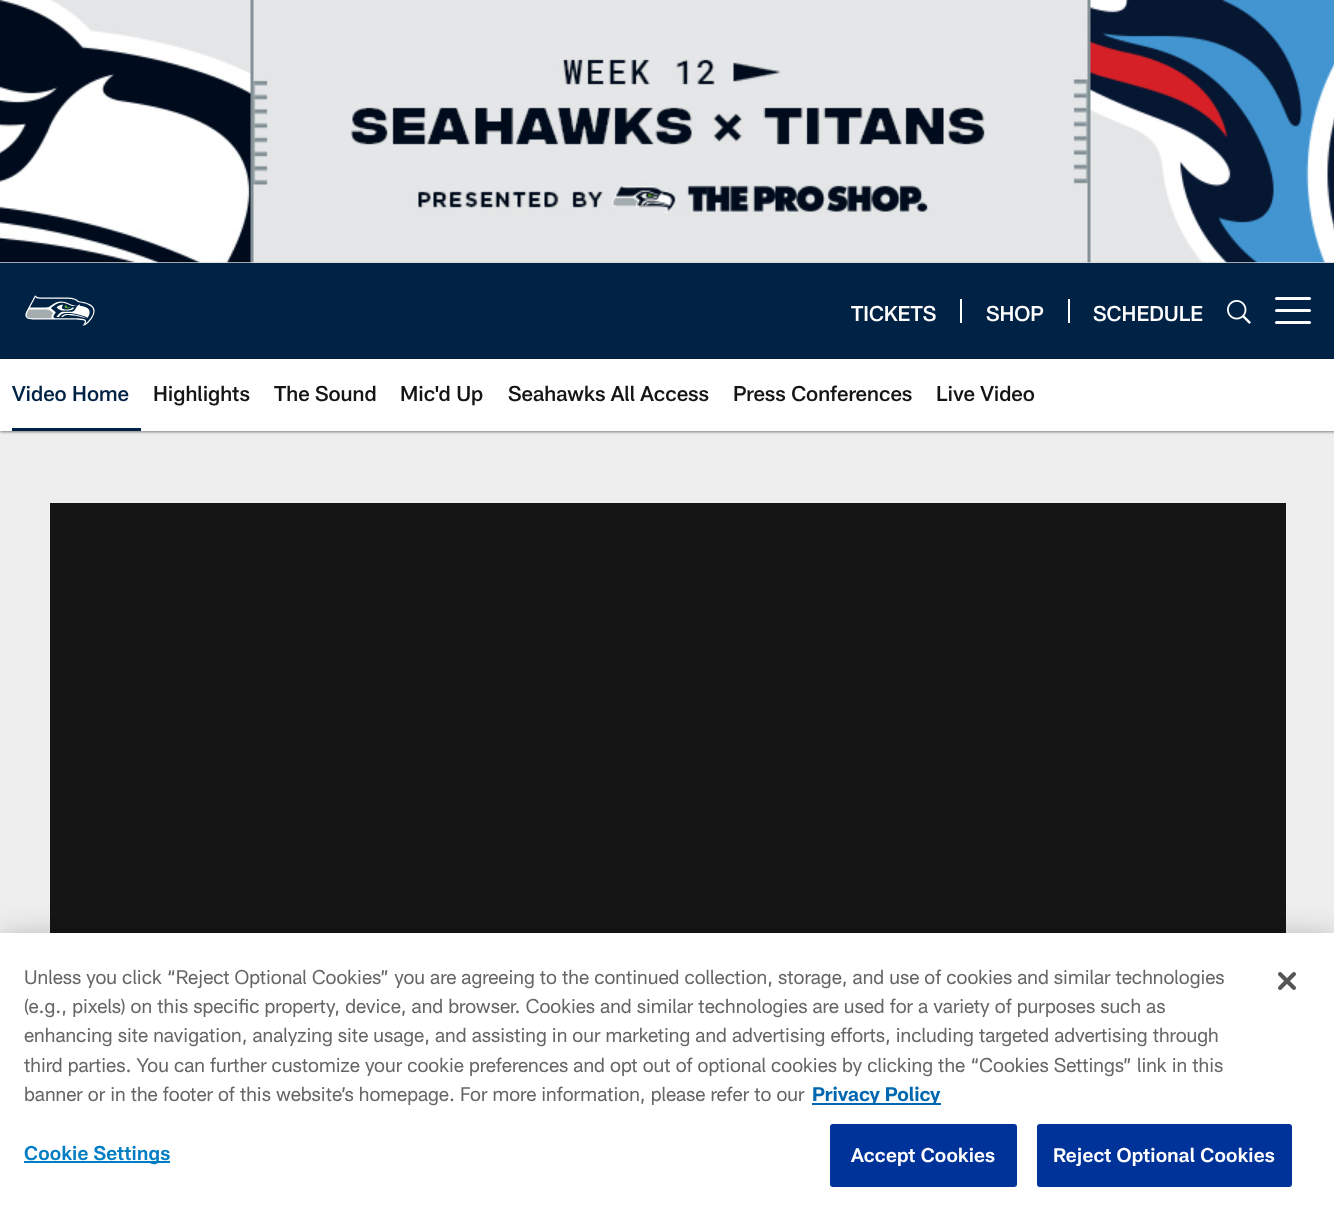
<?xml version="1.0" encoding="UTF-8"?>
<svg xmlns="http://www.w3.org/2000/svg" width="1334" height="1215">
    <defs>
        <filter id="blur1" x="-50%" y="-200%" width="200%" height="500%"><feGaussianBlur stdDeviation="1.5"/></filter>
        <filter id="blur2" x="-50%" y="-200%" width="200%" height="500%"><feGaussianBlur stdDeviation="13.5"/></filter>
    </defs>
    <rect width="100%" height="100%" fill="#EEEEEE"/>
    <image x="0" y="0" width="1334" height="263" href="img_01.png"/>
    <rect x="0" y="264" width="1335" height="96" fill="#000000" fill-opacity="0.47" filter="url(#blur1)"/>
    <rect x="0" y="263" width="1334" height="96" fill="#002244"/>
    <image x="25" y="295" width="70" height="31" href="img_02.png"/>
    <text x="851" y="321" font-family="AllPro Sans" font-size="21" font-weight="500" fill="#FFFFFF">TICKETS</text>
    <rect x="960" y="299" width="2" height="24" fill="#FFFFFF"/>
    <text x="986" y="321" font-family="AllPro Sans" font-size="21" font-weight="500" fill="#FFFFFF">SHOP</text>
    <rect x="1068" y="299" width="2" height="24" fill="#FFFFFF"/>
    <text x="1093" y="321" font-family="AllPro Sans" font-size="21" font-weight="500" fill="#FFFFFF">SCHEDULE</text>
    <image x="1227" y="300" width="24" height="24" href="img_03.png"/>
    <rect x="1275" y="309" width="36" height="3" rx="1.5" fill="#FFFFFF"/>
    <rect x="1275" y="297" width="36" height="3" rx="1.5" fill="#FFFFFF"/>
    <rect x="1275" y="321" width="36" height="3" rx="1.5" fill="#FFFFFF"/>
    <rect x="0" y="360" width="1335" height="72" fill="#000000" fill-opacity="0.47" filter="url(#blur1)"/>
    <rect x="0" y="359" width="1334" height="72" fill="#FFFFFF"/>
    <rect x="12" y="428" width="129" height="3" fill="#002244"/>
    <text x="12" y="401" font-family="AllPro Sans" font-size="21" font-weight="500" fill="#002244">Video Home</text>
    <text x="153" y="401" font-family="AllPro Sans" font-size="21" font-weight="500" fill="#151515">Highlights</text>
    <text x="274" y="401" font-family="AllPro Sans" font-size="21" font-weight="500" fill="#151515">The Sound</text>
    <text x="400" y="401" font-family="AllPro Sans" font-size="21" font-weight="500" fill="#151515">Mic'd Up</text>
    <text x="508" y="401" font-family="AllPro Sans" font-size="21" font-weight="500" fill="#151515">Seahawks All Access</text>
    <text x="733" y="401" font-family="AllPro Sans" font-size="21" font-weight="500" fill="#151515">Press Conferences</text>
    <text x="936" y="401" font-family="AllPro Sans" font-size="21" font-weight="500" fill="#151515">Live Video</text>
    <rect x="50" y="503" width="1236" height="430" fill="#151515"/>
    <rect x="0" y="933" width="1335" height="282" fill="#000000" fill-opacity="0.2" filter="url(#blur2)"/>
    <rect x="0" y="933" width="1334" height="282" fill="#FFFFFF"/>
    <text font-family="AllPro Sans" font-size="19.5" fill="#666666">
        <tspan x="24" y="984">Unless you click “Reject Optional Cookies” you are agreeing to the continued collection, storage, and use of cookies and similar technologies</tspan>
        <tspan x="24" y="1013">(e.g., pixels) on this specific property, device, and browser. Cookies and similar technologies are used for a variety of purposes such as</tspan>
        <tspan x="24" y="1042">enhancing site navigation, analyzing site usage, and assisting in our marketing and advertising efforts, including targeted advertising through</tspan>
        <tspan x="24" y="1072">third parties. You can further customize your cookie preferences and opt out of optional cookies by clicking the “Cookies Settings” link in this</tspan>
        <tspan x="24" y="1101">banner or in the footer of this website’s homepage. For more information, please refer to our</tspan>
    </text>
    <rect x="812" y="1103" width="129" height="2" fill="#0067B1"/>
    <text x="812" y="1101" font-family="AllPro Sans" font-size="19.5" font-weight="700" fill="#0067B1">Privacy Policy</text>
    <rect x="24" y="1161" width="146" height="2" fill="#007DC3"/>
    <text x="24" y="1160" font-family="AllPro Sans" font-size="19.5" font-weight="600" letter-spacing="0.2" fill="#007DC3">Cookie Settings</text>
    <rect x="831" y="1125" width="185" height="61" rx="2" fill="#003399" stroke="#003399" stroke-width="2"/>
    <text x="851" y="1162" font-family="AllPro Sans" font-size="19.5" font-weight="600" letter-spacing="0.2" fill="#FFFFFF">Accept Cookies</text>
    <rect x="1038" y="1125" width="253" height="61" rx="2" fill="#003399" stroke="#003399" stroke-width="2"/>
    <text x="1053" y="1162" font-family="AllPro Sans" font-size="19.5" font-weight="600" letter-spacing="0.2" fill="#FFFFFF">Reject Optional Cookies</text>
    <image x="1278" y="972" width="18" height="18" href="img_04.png"/>
</svg>
